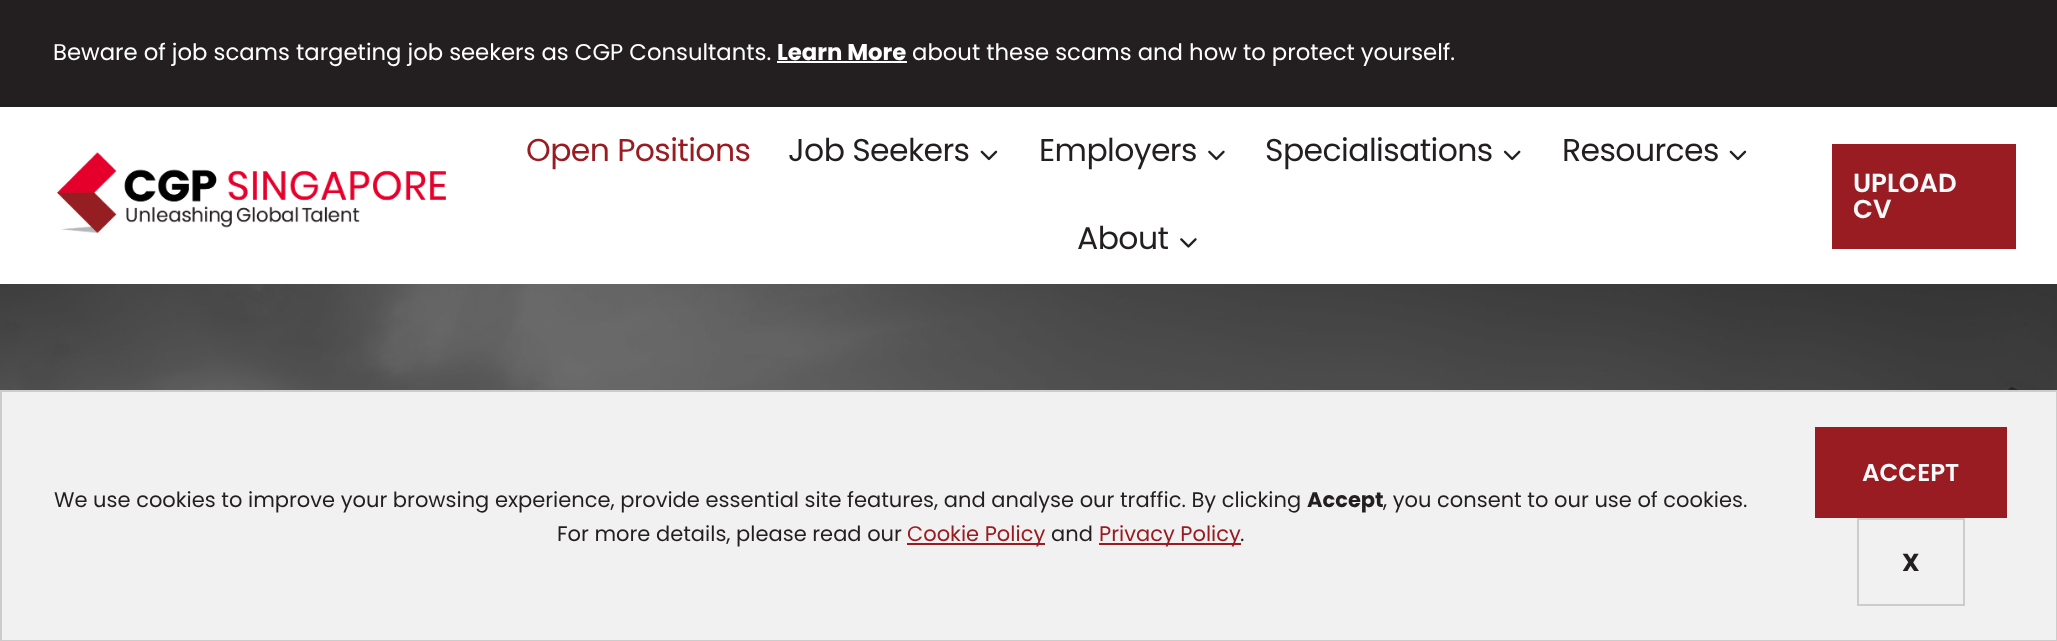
<?xml version="1.0" encoding="UTF-8"?>
<svg xmlns="http://www.w3.org/2000/svg" width="2057" height="641">
    <rect width="100%" height="100%" fill="#FFFFFF"/>
    <rect x="0" y="0" width="2057" height="107" fill="#231F20"/>
    <text x="53" y="60" font-family="Poppins" font-size="22.75" fill="#FFFFFF">Beware of job scams targeting job seekers as CGP Consultants.</text>
    <text x="777" y="60" font-family="Poppins" font-size="22.75" font-weight="700" fill="#FFFFFF">Learn More</text>
    <rect x="777" y="61" width="130" height="2" fill="#FFFFFF"/>
    <text x="912" y="60" font-family="Poppins" font-size="22.75" fill="#FFFFFF">about these scams and how to protect yourself.</text>
    <image x="57" y="152" width="389" height="82" href="img_01.png"/>
    <text x="526" y="161" font-family="Poppins" font-size="31.5" letter-spacing="-0.6" fill="#991C22">Open Positions</text>
    <text x="788" y="161" font-family="Poppins" font-size="31.5" letter-spacing="-0.6" fill="#231F20">Job Seekers</text>
    <image x="980" y="150" width="18" height="11" href="img_02.png"/>
    <text x="1039" y="161" font-family="Poppins" font-size="31.5" letter-spacing="-0.6" fill="#231F20">Employers</text>
    <image x="1208" y="150" width="17" height="11" href="img_03.png"/>
    <text x="1265" y="161" font-family="Poppins" font-size="31.5" letter-spacing="-0.6" fill="#231F20">Specialisations</text>
    <image x="1503" y="150" width="18" height="11" href="img_04.png"/>
    <text x="1562" y="161" font-family="Poppins" font-size="31.5" letter-spacing="-0.6" fill="#231F20">Resources</text>
    <image x="1729" y="150" width="18" height="11" href="img_02.png"/>
    <text x="1077" y="249" font-family="Poppins" font-size="31.5" letter-spacing="-0.6" fill="#231F20">About</text>
    <image x="1180" y="238" width="17" height="10" href="img_05.png"/>
    <rect x="1832" y="144" width="184" height="105" fill="#991C22"/>
    <text font-family="Poppins" font-size="26" font-weight="600" fill="#F8F9FA">
        <tspan x="1853" y="192">UPLOAD</tspan>
        <tspan x="1853" y="218">CV</tspan>
    </text>
    <image x="0" y="284" width="2057" height="106" href="img_06.png"/>
    <rect x="1" y="391" width="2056" height="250" fill="#F1F1F1" stroke="#CCCCCC" stroke-width="2"/>
    <text x="54" y="507" font-family="Poppins" font-size="21" fill="#231F20">We use cookies to improve your browsing experience, provide essential site features, and analyse our traffic. By clicking</text>
    <text x="1307" y="507" font-family="Poppins" font-size="21" font-weight="700" fill="#231F20">Accept</text>
    <text x="1383" y="507" font-family="Poppins" font-size="21" fill="#231F20">, you consent to our use of cookies.</text>
    <text x="557" y="541" font-family="Poppins" font-size="21" fill="#231F20">For more details, please read our</text>
    <rect x="907" y="543" width="138" height="2" fill="#991C22"/>
    <text x="907" y="541" font-family="Poppins" font-size="21" fill="#991C22">Cookie Policy</text>
    <text x="1051" y="541" font-family="Poppins" font-size="21" fill="#231F20">and</text>
    <rect x="1099" y="543" width="142" height="2" fill="#991C22"/>
    <text x="1099" y="541" font-family="Poppins" font-size="21" fill="#991C22">Privacy Policy</text>
    <text x="1240" y="541" font-family="Poppins" font-size="21" fill="#231F20">.</text>
    <rect x="1815" y="427" width="192" height="91" fill="#991C22"/>
    <text x="1862" y="481" font-family="Poppins" font-size="24.5" font-weight="600" fill="#F8F9FA">ACCEPT</text>
    <rect x="1858" y="519" width="106" height="86" fill="none" stroke="#CCCCCC" stroke-width="2"/>
    <text x="1902" y="571" font-family="Poppins" font-size="24.5" font-weight="700" fill="#231F20">X</text>
</svg>
